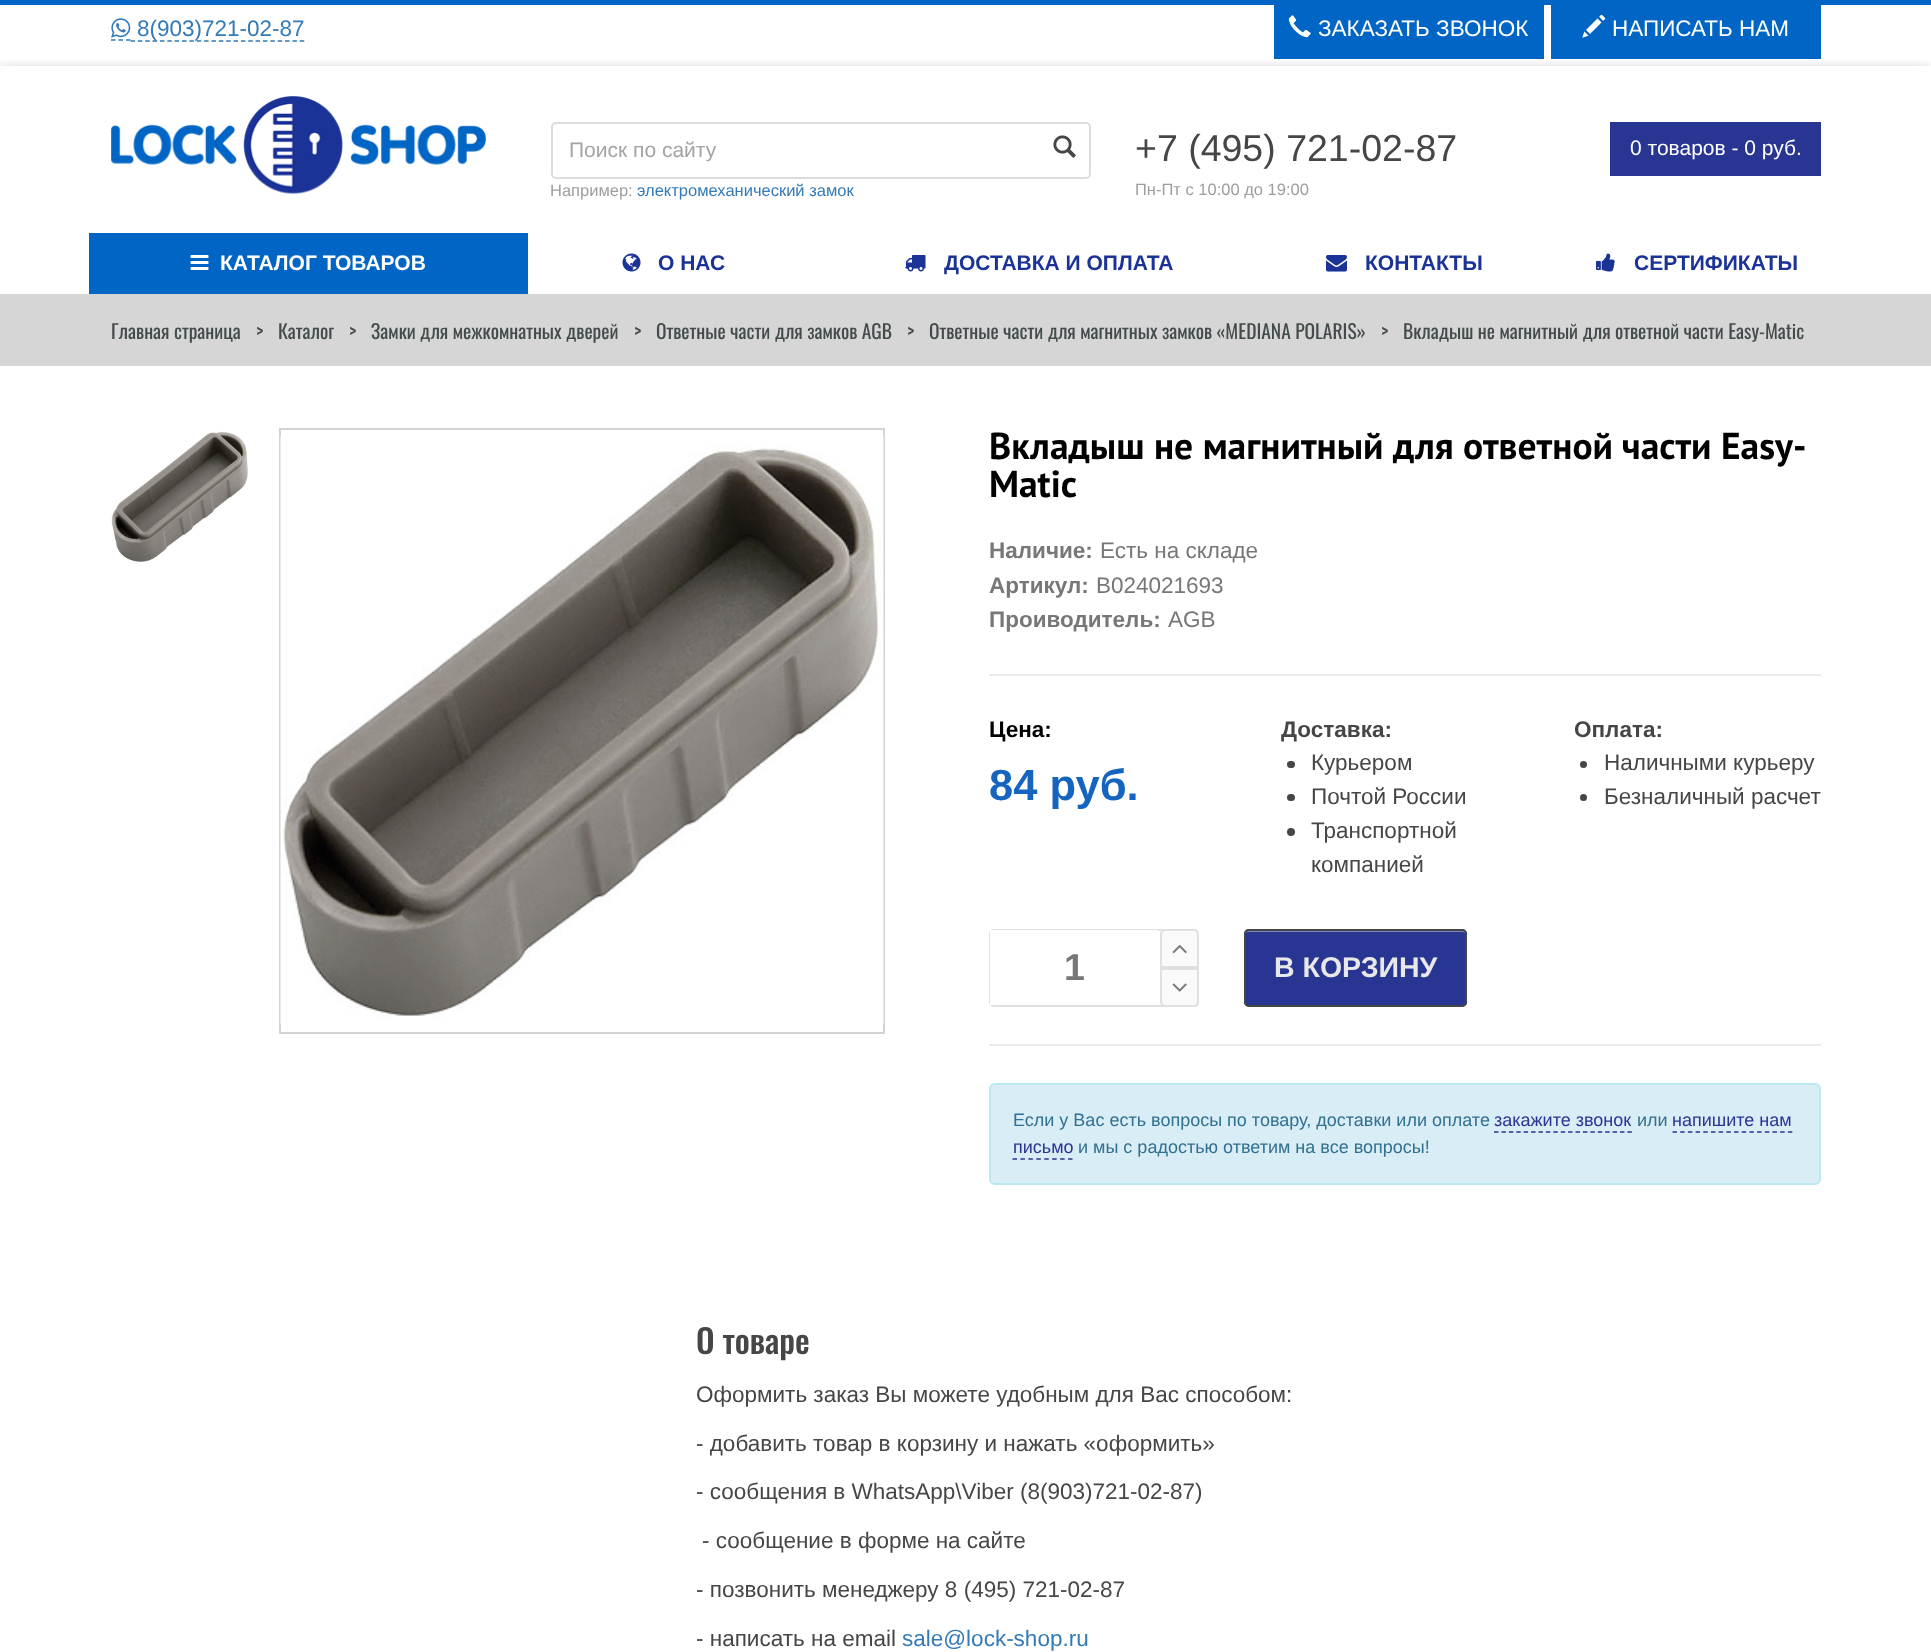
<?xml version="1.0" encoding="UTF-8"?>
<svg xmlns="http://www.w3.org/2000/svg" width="1931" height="1652">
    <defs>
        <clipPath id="clip1"><rect x="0" y="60" width="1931" height="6"/></clipPath>
        <filter id="blur1" x="-50%" y="-200%" width="200%" height="500%"><feGaussianBlur stdDeviation="7.5"/></filter>
    </defs>
    <rect width="100%" height="100%" fill="#FFFFFF"/>
    <rect x="0" y="0" width="1931" height="5" fill="#0065C4"/>
    <path d="M 111 40 H 115.5 M 118.5 40 H 123 M 126 40 H 130.5" fill="none" stroke="#337AB7" stroke-width="1.5"/>
    <path d="M 130.5 41 H 304.5" fill="none" stroke="#337AB7" stroke-width="1.5" stroke-dasharray="4.5 2.86"/>
    <image x="111" y="18" width="20" height="20" href="img_01.png"/>
    <text x="137" y="36" font-family="Liberation Sans" font-size="22.5" fill="#337AB7">8(903)721-02-87</text>
    <g clip-path="url(#clip1)">
        <rect x="-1" y="71" width="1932" height="228" fill="#000000" fill-opacity="0.3" filter="url(#blur1)"/>
    </g>
    <rect x="1274" y="5" width="270" height="54" fill="#0065C4"/>
    <image x="1288" y="15" width="23" height="23" href="img_02.png"/>
    <text x="1318" y="36" font-family="Liberation Sans" font-size="22.5" fill="#FFFFFF">ЗАКАЗАТЬ ЗВОНОК</text>
    <rect x="1551" y="5" width="270" height="54" fill="#0065C4"/>
    <image x="1582" y="14" width="24" height="24" href="img_03.png"/>
    <text x="1612" y="36" font-family="Liberation Sans" font-size="22.5" fill="#FFFFFF">НАПИСАТЬ НАМ</text>
    <image x="111" y="96" width="375" height="98" href="img_04.png"/>
    <rect x="552" y="123" width="538" height="55" rx="4" fill="none" stroke="#DCDCDC" stroke-width="2"/>
    <text x="569" y="157" font-family="Liberation Sans" font-size="21" fill="#A4A4A4">Поиск по сайту</text>
    <image x="1053" y="135" width="23" height="23" href="img_05.png"/>
    <text x="550" y="196" font-family="Liberation Sans" font-size="16.5" fill="#9E9E9E">Например:</text>
    <text x="637" y="196" font-family="Liberation Sans" font-size="16.5" fill="#337AB7">электромеханический замок</text>
    <text x="1135" y="161" font-family="Liberation Sans" font-size="37.5" fill="#464646">+7 (495) 721-02-87</text>
    <text x="1135" y="195" font-family="Liberation Sans" font-size="16.5" fill="#9E9E9E">Пн-Пт с 10:00 до 19:00</text>
    <rect x="1610" y="122" width="211" height="54" fill="#283593"/>
    <text x="1630" y="155" font-family="Liberation Sans" font-size="21" fill="#FFFFFF">0 товаров - 0 руб.</text>
    <rect x="89" y="233" width="439" height="61" fill="#0065C4"/>
    <image x="190" y="255" width="19" height="15" href="img_06.png"/>
    <text x="220" y="270" font-family="Liberation Sans" font-size="21" font-weight="700" fill="#FFFFFF">КАТАЛОГ ТОВАРОВ</text>
    <image x="622" y="253" width="19" height="19" href="img_07.png"/>
    <text x="658" y="270" font-family="Liberation Sans" font-size="21" font-weight="700" fill="#1B3297">О НАС</text>
    <image x="905" y="255" width="21" height="17" href="img_08.png"/>
    <text x="944" y="270" font-family="Liberation Sans" font-size="21" font-weight="700" fill="#1B3297">ДОСТАВКА И ОПЛАТА</text>
    <image x="1326" y="255" width="21" height="17" href="img_09.png"/>
    <text x="1365" y="270" font-family="Liberation Sans" font-size="21" font-weight="700" fill="#1B3297">КОНТАКТЫ</text>
    <image x="1596" y="253" width="19" height="19" href="img_10.png"/>
    <text x="1634" y="270" font-family="Liberation Sans" font-size="21" font-weight="700" fill="#1B3297">СЕРТИФИКАТЫ</text>
    <rect x="0" y="294" width="1931" height="72" fill="#D6D6D6"/>
    <text x="111" y="339" font-family="Oswald" font-size="19.5" fill="#444B4C">Главная страница</text>
    <text x="256" y="339" font-family="Oswald" font-size="19.5" fill="#444B4C">&gt;</text>
    <text x="278" y="339" font-family="Oswald" font-size="19.5" fill="#444B4C">Каталог</text>
    <text x="349" y="339" font-family="Oswald" font-size="19.5" fill="#444B4C">&gt;</text>
    <text x="371" y="339" font-family="Oswald" font-size="19.5" fill="#444B4C">Замки для межкомнатных дверей</text>
    <text x="634" y="339" font-family="Oswald" font-size="19.5" fill="#444B4C">&gt;</text>
    <text x="656" y="339" font-family="Oswald" font-size="19.5" fill="#444B4C">Ответные части для замков AGB</text>
    <text x="907" y="339" font-family="Oswald" font-size="19.5" fill="#444B4C">&gt;</text>
    <text x="929" y="339" font-family="Oswald" font-size="19.5" fill="#444B4C">Ответные части для магнитных замков «MEDIANA POLARIS»</text>
    <text x="1381" y="339" font-family="Oswald" font-size="19.5" fill="#444B4C">&gt;</text>
    <text x="1403" y="339" font-family="Oswald" font-size="19.5" fill="#444B4C">Вкладыш не магнитный для ответной части Easy-Matic</text>
    <image x="111" y="431" width="137" height="131" href="img_11.png"/>
    <rect x="280" y="429" width="604" height="604" fill="none" stroke="#D2D2D2" stroke-width="2"/>
    <image x="280" y="436" width="604" height="589" href="img_12.png"/>
    <text font-family="PT Sans" font-size="37.5" font-weight="700" fill="#000000">
        <tspan x="989" y="459">Вкладыш не магнитный для ответной части Easy-</tspan>
        <tspan x="989" y="497">Matic</tspan>
    </text>
    <text x="989" y="558" font-family="Liberation Sans" font-size="22.5" font-weight="700" fill="#777777">Наличие:</text>
    <text x="1100" y="558" font-family="Liberation Sans" font-size="22.5" fill="#777777">Есть на складе</text>
    <text x="989" y="593" font-family="Liberation Sans" font-size="22.5" font-weight="700" fill="#777777">Артикул:</text>
    <text x="1096" y="593" font-family="Liberation Sans" font-size="22.5" fill="#777777">В024021693</text>
    <text x="989" y="627" font-family="Liberation Sans" font-size="22.5" font-weight="700" fill="#777777">Проиводитель:</text>
    <text x="1168" y="627" font-family="Liberation Sans" font-size="22.5" fill="#777777">AGB</text>
    <rect x="989" y="674" width="832" height="2" fill="#EBEBEB"/>
    <text x="989" y="737" font-family="Liberation Sans" font-size="22.5" font-weight="700" fill="#000000">Цена:</text>
    <text x="989" y="800" font-family="Liberation Sans" font-size="43.5" font-weight="700" fill="#1565C0">84 руб.</text>
    <text x="1281" y="737" font-family="Liberation Sans" font-size="22.5" font-weight="700" fill="#464646">Доставка:</text>
    <rect x="1287" y="761" width="8" height="7" rx="3.5" fill="#464646"/>
    <text x="1311" y="770" font-family="Liberation Sans" font-size="22.5" fill="#464646">Курьером</text>
    <rect x="1287" y="794" width="8" height="7" rx="3.5" fill="#464646"/>
    <text x="1311" y="804" font-family="Liberation Sans" font-size="22.5" fill="#464646">Почтой России</text>
    <circle cx="1291" cy="832" r="4" fill="#464646"/>
    <text font-family="Liberation Sans" font-size="22.5" fill="#464646">
        <tspan x="1311" y="838">Транспортной</tspan>
        <tspan x="1311" y="872">компанией</tspan>
    </text>
    <text x="1574" y="737" font-family="Liberation Sans" font-size="22.5" font-weight="700" fill="#464646">Оплата:</text>
    <circle cx="1583.5" cy="764.5" r="3.5" fill="#464646"/>
    <text x="1604" y="770" font-family="Liberation Sans" font-size="22.5" fill="#464646">Наличными курьеру</text>
    <circle cx="1583.5" cy="797.5" r="3.5" fill="#464646"/>
    <text x="1604" y="804" font-family="Liberation Sans" font-size="22.5" fill="#464646">Безналичный расчет</text>
    <rect x="990" y="930" width="208" height="76" rx="4" fill="none" stroke="#E0E0E0" stroke-width="2"/>
    <rect x="990" y="930" width="168" height="75" fill="#FFFFFF"/>
    <text x="1064" y="980" font-family="Liberation Sans" font-size="37.5" font-weight="700" fill="#777777">1</text>
    <path d="M 1165 929 H 1194 C 1197 929 1199 931 1199 934 V 968 H 1160 V 934 C 1160 931 1162 929 1165 929 Z" fill="#FAFAFA"/>
    <path d="M 1164 932 H 1194 C 1196 932 1197 933 1197 934 C 1197 929 1193 930 1189 930 H 1169 C 1165 930 1161 929 1161 934 C 1161 933 1162 932 1164 932 Z" fill="#FEFEFE"/>
    <path d="M 1165 930 H 1194 C 1196 930 1198 932 1198 934 V 967 H 1161 V 934 C 1161 932 1163 930 1165 930 Z" fill="none" stroke="#E0E0E0" stroke-width="2"/>
    <image x="1172" y="945" width="15" height="9" href="img_13.png"/>
    <path d="M 1161 969 H 1198 V 1002 C 1198 1004 1196 1006 1194 1006 H 1165 C 1163 1006 1161 1004 1161 1002 Z" fill="#FAFAFA" stroke="#E0E0E0" stroke-width="2"/>
    <image x="1172" y="983" width="15" height="9" href="img_14.png"/>
    <rect x="1244" y="929" width="223" height="78" rx="5" fill="#283593"/>
    <path d="M 1248 932 H 1462 C 1464 932 1466 933 1466 934 V 933 C 1466 931 1465 930 1463 930 H 1248 C 1246 930 1245 931 1245 933 V 934 C 1245 933 1246 932 1248 932 Z" fill="#7E86BE"/>
    <rect x="1245" y="930" width="221" height="76" rx="4" fill="none" stroke="#444645" stroke-width="2"/>
    <text x="1274" y="977" font-family="Liberation Sans" font-size="28.5" font-weight="700" fill="#E8E8E8">В КОРЗИНУ</text>
    <rect x="989" y="1044" width="832" height="2" fill="#EBEBEB"/>
    <rect x="990" y="1084" width="830" height="100" rx="5" fill="#D9EDF7" stroke="#BCE8F1" stroke-width="2"/>
    <text x="1013" y="1126" font-family="Liberation Sans" font-size="18" fill="#31708F">Если у Вас есть вопросы по товару, доставки или оплате</text>
    <text x="1494" y="1126" font-family="Liberation Sans" font-size="18" fill="#283593">закажите звонок</text>
    <path d="M 1494 1132 H 1632" fill="none" stroke="#283593" stroke-width="1.5" stroke-dasharray="4.5 2.91"/>
    <text x="1637" y="1126" font-family="Liberation Sans" font-size="18" fill="#31708F">или</text>
    <text x="1672" y="1126" font-family="Liberation Sans" font-size="18" fill="#283593">напишите нам</text>
    <path d="M 1672.5 1132 H 1792.5" fill="none" stroke="#283593" stroke-width="1.5" stroke-dasharray="4.5 3.19"/>
    <text x="1013" y="1153" font-family="Liberation Sans" font-size="18" fill="#283593">письмо</text>
    <path d="M 1012.5 1159 H 1072.5" fill="none" stroke="#283593" stroke-width="1.5" stroke-dasharray="4.5 3.44"/>
    <text x="1078" y="1153" font-family="Liberation Sans" font-size="18" fill="#31708F">и мы с радостью ответим на все вопросы!</text>
    <text x="696" y="1354" font-family="Oswald" font-size="33" font-weight="500" fill="#464646">О товаре</text>
    <text x="696" y="1402" font-family="Liberation Sans" font-size="22.5" fill="#464646">Оформить заказ Вы можете удобным для Вас способом:</text>
    <text x="696" y="1451" font-family="Liberation Sans" font-size="22.5" fill="#464646">- добавить товар в корзину и нажать «оформить»</text>
    <text x="696" y="1499" font-family="Liberation Sans" font-size="22.5" fill="#464646">- сообщения в WhatsApp\Viber (8(903)721-02-87)</text>
    <text x="702" y="1548" font-family="Liberation Sans" font-size="22.5" fill="#464646">- сообщение в форме на сайте</text>
    <text x="696" y="1597" font-family="Liberation Sans" font-size="22.5" fill="#464646">- позвонить менеджеру 8 (495) 721-02-87</text>
    <text x="696" y="1646" font-family="Liberation Sans" font-size="22.5" fill="#464646">- написать на email</text>
    <text x="902" y="1646" font-family="Liberation Sans" font-size="22.5" fill="#337AB7">sale@lock-shop.ru</text>
</svg>
